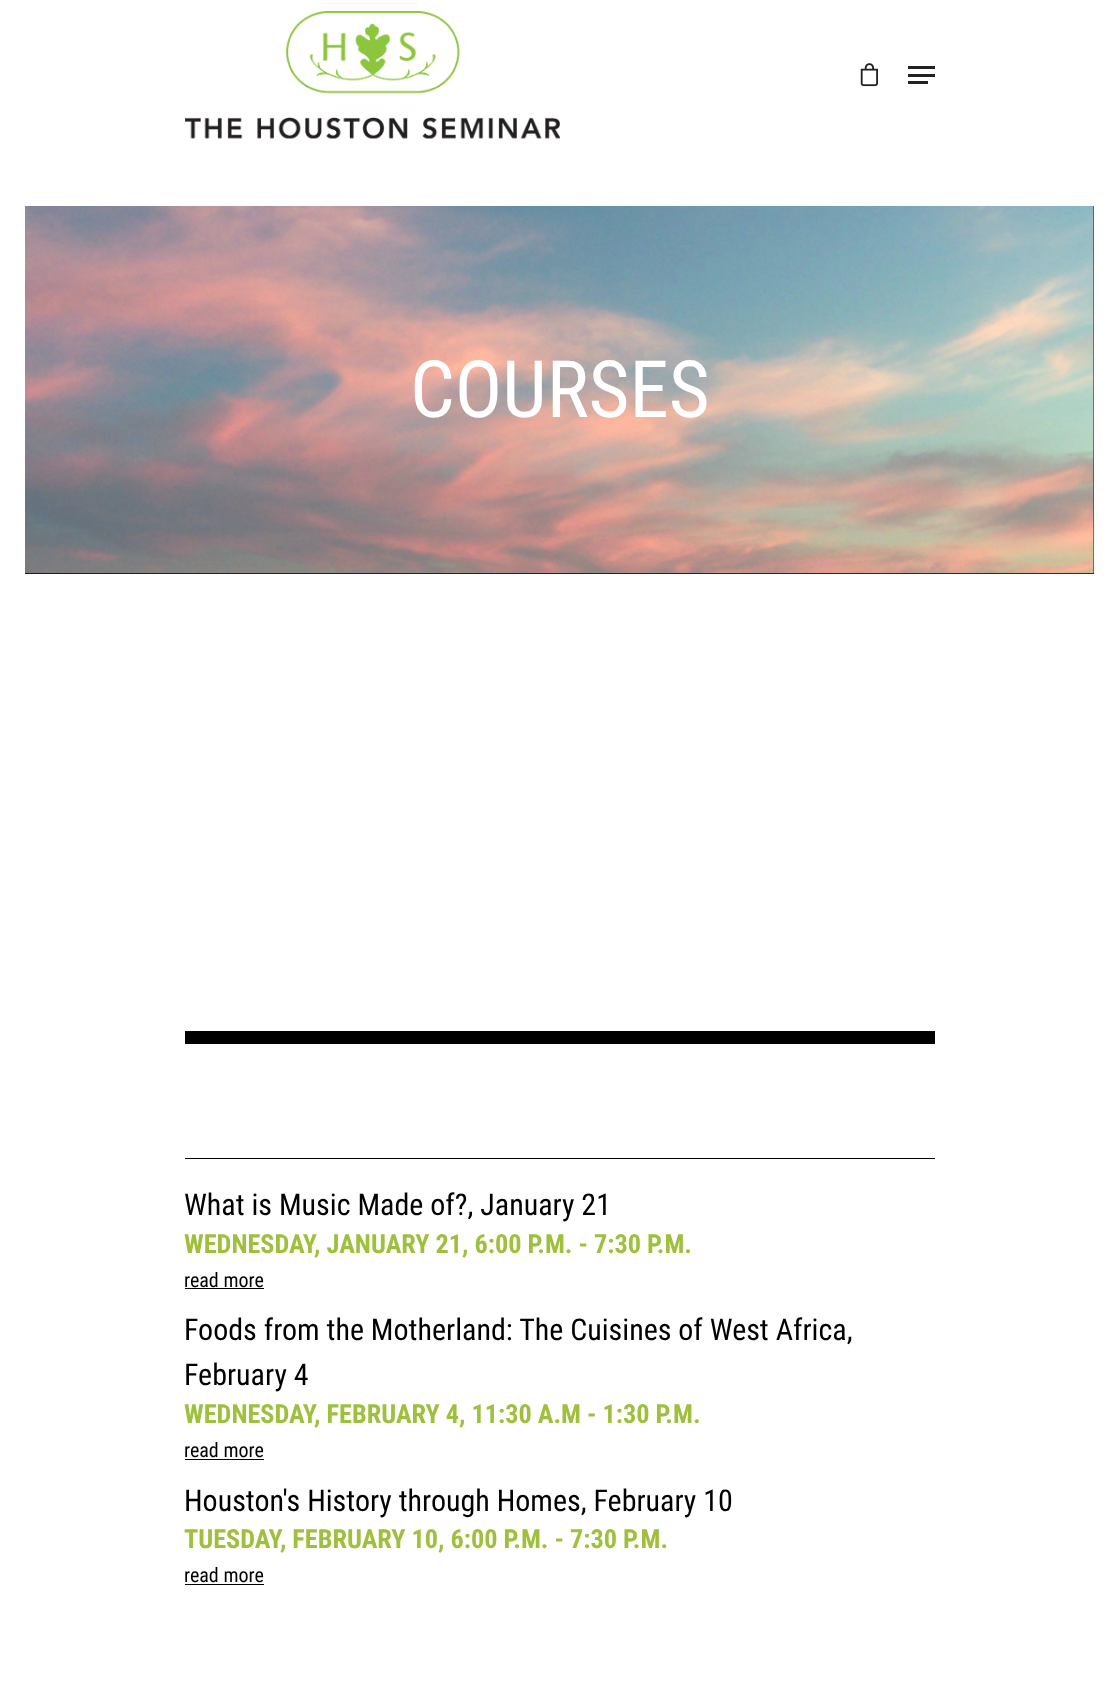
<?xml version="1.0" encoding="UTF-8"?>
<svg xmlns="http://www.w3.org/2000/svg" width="1118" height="1707">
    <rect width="100%" height="100%" fill="#FFFFFF"/>
    <image x="185" y="11" width="375" height="128" href="img_01.png"/>
    <image x="860" y="63" width="18" height="24" href="img_02.png"/>
    <rect x="908" y="66" width="27" height="3" fill="#222222"/>
    <rect x="908" y="81" width="20" height="3" fill="#222222"/>
    <rect x="908" y="74" width="27" height="3" fill="#222222"/>
    <rect x="25" y="206" width="1069" height="368" fill="#000000"/>
    <image x="25" y="206" width="1069" height="368" href="img_03.png"/>
    <text x="410" y="417" font-family="Roboto Condensed" font-size="79" fill="#FFFFFF">COURSES</text>
    <rect x="185" y="1031" width="750" height="13" fill="#000000"/>
    <rect x="185" y="1158" width="750" height="1" fill="#000000"/>
    <text x="184" y="1215" font-family="Roboto Condensed" font-size="30" fill="#000000">What is Music Made of?, January 21</text>
    <text x="184" y="1253" font-family="Roboto Condensed" font-size="26.25" font-weight="700" fill="#9FC03D">WEDNESDAY, JANUARY 21, 6:00 P.M. - 7:30 P.M.</text>
    <text x="184" y="1287" font-family="Roboto Condensed" font-size="20" fill="#000000">read more</text>
    <rect x="185" y="1288" width="79" height="1" fill="#000000"/>
    <text font-family="Roboto Condensed" font-size="30" fill="#000000">
        <tspan x="184" y="1340">Foods from the Motherland: The Cuisines of West Africa,</tspan>
        <tspan x="184" y="1385">February 4</tspan>
    </text>
    <text x="184" y="1423" font-family="Roboto Condensed" font-size="26.25" font-weight="700" fill="#9FC03D">WEDNESDAY, FEBRUARY 4, 11:30 A.M - 1:30 P.M.</text>
    <text x="184" y="1457" font-family="Roboto Condensed" font-size="20" fill="#000000">read more</text>
    <rect x="185" y="1459" width="79" height="1" fill="#000000"/>
    <text x="184" y="1511" font-family="Roboto Condensed" font-size="30" fill="#000000">Houston's History through Homes, February 10</text>
    <text x="184" y="1548" font-family="Roboto Condensed" font-size="26.25" font-weight="700" fill="#9FC03D">TUESDAY, FEBRUARY 10, 6:00 P.M. - 7:30 P.M.</text>
    <text x="184" y="1582" font-family="Roboto Condensed" font-size="20" fill="#000000">read more</text>
    <rect x="185" y="1584" width="79" height="1" fill="#000000"/>
</svg>
